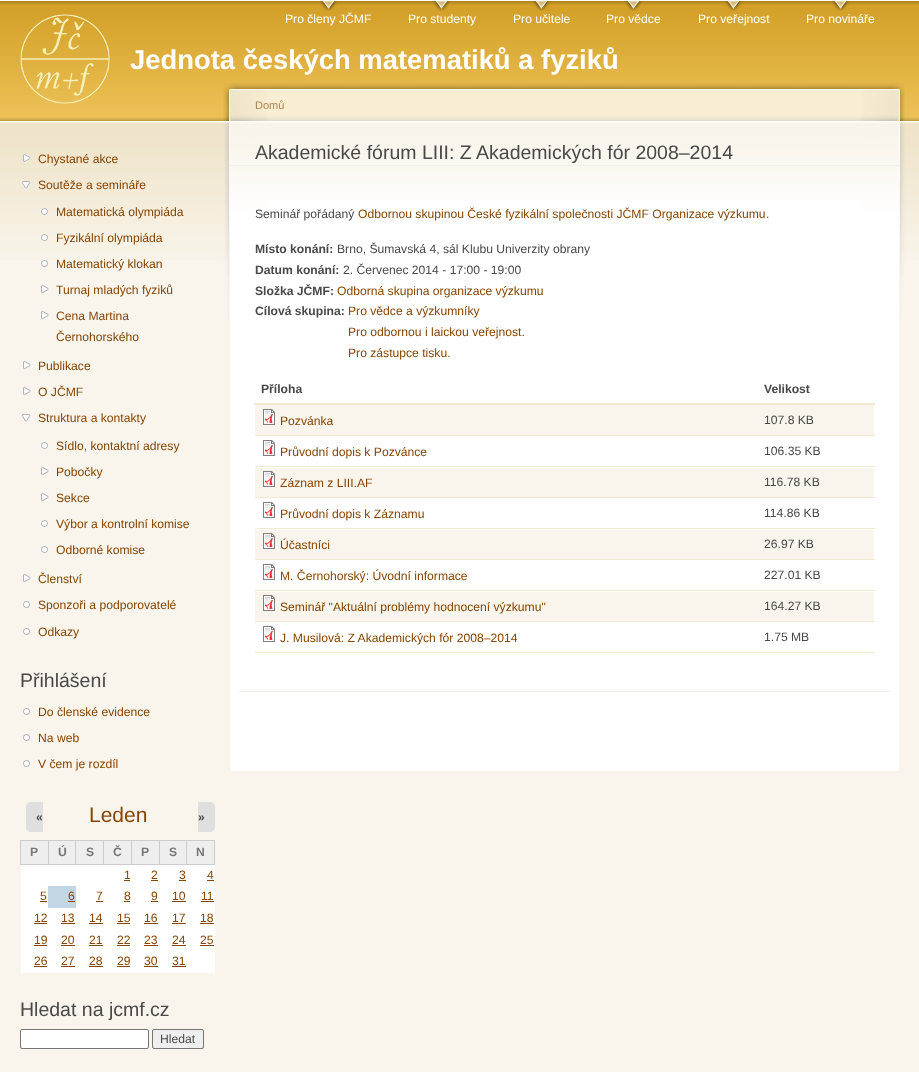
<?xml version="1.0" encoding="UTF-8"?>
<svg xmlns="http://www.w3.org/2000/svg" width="919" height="1072">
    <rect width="100%" height="100%" fill="#F9F5ED"/>
    <image x="0" y="0" width="919" height="260" href="img_01.png"/>
    <image x="320" y="1" width="17" height="10" href="img_02.png"/>
    <text x="285" y="23" font-family="Liberation Sans" font-size="12.15" fill="#FFFFFF">Pro členy JČMF</text>
    <image x="433" y="1" width="17" height="10" href="img_02.png"/>
    <text x="408" y="23" font-family="Liberation Sans" font-size="12.15" fill="#FFFFFF">Pro studenty</text>
    <image x="533" y="1" width="17" height="10" href="img_02.png"/>
    <text x="513" y="23" font-family="Liberation Sans" font-size="12.15" fill="#FFFFFF">Pro učitele</text>
    <image x="625" y="1" width="17" height="10" href="img_02.png"/>
    <text x="606" y="23" font-family="Liberation Sans" font-size="12.15" fill="#FFFFFF">Pro vědce</text>
    <image x="725" y="1" width="17" height="10" href="img_02.png"/>
    <text x="698" y="23" font-family="Liberation Sans" font-size="12.15" fill="#FFFFFF">Pro veřejnost</text>
    <image x="832" y="1" width="17" height="10" href="img_02.png"/>
    <text x="806" y="23" font-family="Liberation Sans" font-size="12.15" fill="#FFFFFF">Pro novináře</text>
    <image x="20" y="14" width="90" height="90" href="img_03.png"/>
    <text x="130" y="69" font-family="Liberation Sans" font-size="27.4" font-weight="700" fill="#FFFFFF">Jednota českých matematiků a fyziků</text>
    <image x="23" y="153" width="8" height="10" href="img_04.png"/>
    <text x="38" y="163" font-family="Liberation Sans" font-size="12.15" fill="#884400">Chystané akce</text>
    <image x="21" y="181" width="10" height="8" href="img_05.png"/>
    <text x="38" y="189" font-family="Liberation Sans" font-size="12.15" fill="#884400">Soutěže a semináře</text>
    <image x="41" y="208" width="7" height="7" href="img_06.png"/>
    <text x="56" y="216" font-family="Liberation Sans" font-size="12.15" fill="#884400">Matematická olympiáda</text>
    <image x="41" y="234" width="7" height="7" href="img_07.png"/>
    <text x="56" y="242" font-family="Liberation Sans" font-size="12.15" fill="#884400">Fyzikální olympiáda</text>
    <image x="41" y="260" width="7" height="7" href="img_08.png"/>
    <text x="56" y="268" font-family="Liberation Sans" font-size="12.15" fill="#884400">Matematický klokan</text>
    <image x="41" y="284" width="8" height="10" href="img_09.png"/>
    <text x="56" y="294" font-family="Liberation Sans" font-size="12.15" fill="#884400">Turnaj mladých fyziků</text>
    <image x="41" y="310" width="8" height="10" href="img_09.png"/>
    <text font-family="Liberation Sans" font-size="12.15" fill="#884400">
        <tspan x="56" y="320">Cena Martina</tspan>
        <tspan x="56" y="341">Černohorského</tspan>
    </text>
    <image x="23" y="360" width="8" height="10" href="img_09.png"/>
    <text x="38" y="370" font-family="Liberation Sans" font-size="12.15" fill="#884400">Publikace</text>
    <image x="23" y="386" width="8" height="10" href="img_09.png"/>
    <text x="38" y="396" font-family="Liberation Sans" font-size="12.15" fill="#884400">O JČMF</text>
    <image x="21" y="414" width="10" height="8" href="img_10.png"/>
    <text x="38" y="422" font-family="Liberation Sans" font-size="12.15" fill="#884400">Struktura a kontakty</text>
    <image x="41" y="442" width="7" height="7" href="img_08.png"/>
    <text x="56" y="450" font-family="Liberation Sans" font-size="12.15" fill="#884400">Sídlo, kontaktní adresy</text>
    <image x="41" y="466" width="8" height="10" href="img_09.png"/>
    <text x="56" y="476" font-family="Liberation Sans" font-size="12.15" fill="#884400">Pobočky</text>
    <image x="41" y="492" width="8" height="10" href="img_09.png"/>
    <text x="56" y="502" font-family="Liberation Sans" font-size="12.15" fill="#884400">Sekce</text>
    <image x="41" y="520" width="7" height="7" href="img_08.png"/>
    <text x="56" y="528" font-family="Liberation Sans" font-size="12.15" fill="#884400">Výbor a kontrolní komise</text>
    <image x="41" y="546" width="7" height="7" href="img_08.png"/>
    <text x="56" y="554" font-family="Liberation Sans" font-size="12.15" fill="#884400">Odborné komise</text>
    <image x="23" y="573" width="8" height="10" href="img_09.png"/>
    <text x="38" y="583" font-family="Liberation Sans" font-size="12.15" fill="#884400">Členství</text>
    <image x="23" y="601" width="7" height="7" href="img_08.png"/>
    <text x="38" y="609" font-family="Liberation Sans" font-size="12.15" fill="#884400">Sponzoři a podporovatelé</text>
    <image x="23" y="628" width="7" height="7" href="img_08.png"/>
    <text x="38" y="636" font-family="Liberation Sans" font-size="12.15" fill="#884400">Odkazy</text>
    <text x="20" y="687" font-family="Liberation Sans" font-size="19.5" fill="#494949">Přihlášení</text>
    <image x="23" y="708" width="7" height="7" href="img_08.png"/>
    <text x="38" y="716" font-family="Liberation Sans" font-size="12.15" fill="#884400">Do členské evidence</text>
    <image x="23" y="734" width="7" height="7" href="img_08.png"/>
    <text x="38" y="742" font-family="Liberation Sans" font-size="12.15" fill="#884400">Na web</text>
    <image x="23" y="760" width="7" height="7" href="img_08.png"/>
    <text x="38" y="768" font-family="Liberation Sans" font-size="12.15" fill="#884400">V čem je rozdíl</text>
    <text x="89" y="822" font-family="Liberation Sans" font-size="21" fill="#884400">Leden</text>
    <path d="M 31 802 H 43 V 832 H 31 C 28 832 26 830 26 827 V 807 C 26 804 28 802 31 802 Z" fill="#DFDFDF"/>
    <text x="36" y="821" font-family="Liberation Sans" font-size="12" font-weight="700" fill="#494949">«</text>
    <path d="M 198 802 H 210 C 213 802 215 804 215 807 V 827 C 215 830 213 832 210 832 H 198 Z" fill="#DFDFDF"/>
    <text x="198" y="821" font-family="Liberation Sans" font-size="12" font-weight="700" fill="#494949">»</text>
    <rect x="21" y="841" width="27" height="23" fill="#EEEEEE"/>
    <rect x="186" y="840" width="29" height="1" fill="#CCCCCC"/>
    <rect x="214" y="840" width="1" height="25" fill="#CCCCCC"/>
    <rect x="186" y="864" width="29" height="1" fill="#CCCCCC"/>
    <rect x="186" y="840" width="1" height="25" fill="#CCCCCC"/>
    <rect x="159" y="840" width="28" height="1" fill="#CCCCCC"/>
    <rect x="159" y="864" width="28" height="1" fill="#CCCCCC"/>
    <rect x="159" y="840" width="1" height="25" fill="#CCCCCC"/>
    <rect x="131" y="840" width="29" height="1" fill="#CCCCCC"/>
    <rect x="131" y="864" width="29" height="1" fill="#CCCCCC"/>
    <rect x="131" y="840" width="1" height="25" fill="#CCCCCC"/>
    <rect x="103" y="840" width="29" height="1" fill="#CCCCCC"/>
    <rect x="103" y="864" width="29" height="1" fill="#CCCCCC"/>
    <rect x="103" y="840" width="1" height="25" fill="#CCCCCC"/>
    <rect x="75" y="840" width="29" height="1" fill="#CCCCCC"/>
    <rect x="75" y="864" width="29" height="1" fill="#CCCCCC"/>
    <rect x="75" y="840" width="1" height="25" fill="#CCCCCC"/>
    <rect x="48" y="840" width="28" height="1" fill="#CCCCCC"/>
    <rect x="48" y="864" width="28" height="1" fill="#CCCCCC"/>
    <rect x="48" y="840" width="1" height="25" fill="#CCCCCC"/>
    <rect x="20" y="840" width="29" height="1" fill="#CCCCCC"/>
    <rect x="20" y="864" width="29" height="1" fill="#CCCCCC"/>
    <rect x="20" y="840" width="1" height="25" fill="#CCCCCC"/>
    <text x="30" y="856" font-family="Liberation Sans" font-size="12.15" font-weight="700" fill="#777777">P</text>
    <rect x="49" y="841" width="26" height="23" fill="#EEEEEE"/>
    <text x="58" y="856" font-family="Liberation Sans" font-size="12.15" font-weight="700" fill="#777777">Ú</text>
    <rect x="76" y="841" width="27" height="23" fill="#EEEEEE"/>
    <text x="86" y="856" font-family="Liberation Sans" font-size="12.15" font-weight="700" fill="#777777">S</text>
    <rect x="104" y="841" width="27" height="23" fill="#EEEEEE"/>
    <text x="113" y="856" font-family="Liberation Sans" font-size="12.15" font-weight="700" fill="#777777">Č</text>
    <rect x="132" y="841" width="27" height="23" fill="#EEEEEE"/>
    <text x="141" y="856" font-family="Liberation Sans" font-size="12.15" font-weight="700" fill="#777777">P</text>
    <rect x="160" y="841" width="26" height="23" fill="#EEEEEE"/>
    <text x="169" y="856" font-family="Liberation Sans" font-size="12.15" font-weight="700" fill="#777777">S</text>
    <rect x="187" y="841" width="27" height="23" fill="#EEEEEE"/>
    <text x="196" y="856" font-family="Liberation Sans" font-size="12.15" font-weight="700" fill="#777777">N</text>
    <rect x="21" y="865" width="194" height="108" fill="#FFFFFF"/>
    <text x="124" y="879" font-family="Liberation Sans" font-size="12.15" fill="#884400">1</text>
    <rect x="124" y="880" width="6" height="1" fill="#884400"/>
    <text x="151" y="879" font-family="Liberation Sans" font-size="12.15" fill="#884400">2</text>
    <rect x="151" y="880" width="7" height="1" fill="#884400"/>
    <text x="179" y="879" font-family="Liberation Sans" font-size="12.15" fill="#884400">3</text>
    <rect x="179" y="880" width="7" height="1" fill="#884400"/>
    <text x="207" y="879" font-family="Liberation Sans" font-size="12.15" fill="#884400">4</text>
    <rect x="207" y="880" width="7" height="1" fill="#884400"/>
    <text x="40" y="900" font-family="Liberation Sans" font-size="12.15" fill="#884400">5</text>
    <rect x="40" y="901" width="7" height="1" fill="#884400"/>
    <rect x="48" y="886" width="28" height="22" fill="#C3D6E4"/>
    <text x="68" y="900" font-family="Liberation Sans" font-size="12.15" fill="#884400">6</text>
    <rect x="68" y="901" width="7" height="1" fill="#884400"/>
    <text x="96" y="900" font-family="Liberation Sans" font-size="12.15" fill="#884400">7</text>
    <rect x="96" y="901" width="7" height="1" fill="#884400"/>
    <text x="124" y="900" font-family="Liberation Sans" font-size="12.15" fill="#884400">8</text>
    <rect x="124" y="901" width="6" height="1" fill="#884400"/>
    <text x="151" y="900" font-family="Liberation Sans" font-size="12.15" fill="#884400">9</text>
    <rect x="151" y="901" width="7" height="1" fill="#884400"/>
    <text x="172" y="900" font-family="Liberation Sans" font-size="12.15" fill="#884400">10</text>
    <rect x="172" y="901" width="14" height="1" fill="#884400"/>
    <text x="201" y="900" font-family="Liberation Sans" font-size="12.15" fill="#884400">11</text>
    <rect x="201" y="901" width="13" height="1" fill="#884400"/>
    <text x="34" y="922" font-family="Liberation Sans" font-size="12.15" fill="#884400">12</text>
    <rect x="34" y="923" width="13" height="1" fill="#884400"/>
    <text x="61" y="922" font-family="Liberation Sans" font-size="12.15" fill="#884400">13</text>
    <rect x="61" y="923" width="14" height="1" fill="#884400"/>
    <text x="89" y="922" font-family="Liberation Sans" font-size="12.15" fill="#884400">14</text>
    <rect x="89" y="923" width="14" height="1" fill="#884400"/>
    <text x="117" y="922" font-family="Liberation Sans" font-size="12.15" fill="#884400">15</text>
    <rect x="117" y="923" width="13" height="1" fill="#884400"/>
    <text x="144" y="922" font-family="Liberation Sans" font-size="12.15" fill="#884400">16</text>
    <rect x="144" y="923" width="14" height="1" fill="#884400"/>
    <text x="172" y="922" font-family="Liberation Sans" font-size="12.15" fill="#884400">17</text>
    <rect x="172" y="923" width="14" height="1" fill="#884400"/>
    <text x="200" y="922" font-family="Liberation Sans" font-size="12.15" fill="#884400">18</text>
    <rect x="200" y="923" width="14" height="1" fill="#884400"/>
    <text x="34" y="944" font-family="Liberation Sans" font-size="12.15" fill="#884400">19</text>
    <rect x="34" y="945" width="13" height="1" fill="#884400"/>
    <text x="61" y="944" font-family="Liberation Sans" font-size="12.15" fill="#884400">20</text>
    <rect x="61" y="945" width="14" height="1" fill="#884400"/>
    <text x="89" y="944" font-family="Liberation Sans" font-size="12.15" fill="#884400">21</text>
    <rect x="89" y="945" width="14" height="1" fill="#884400"/>
    <text x="117" y="944" font-family="Liberation Sans" font-size="12.15" fill="#884400">22</text>
    <rect x="117" y="945" width="13" height="1" fill="#884400"/>
    <text x="144" y="944" font-family="Liberation Sans" font-size="12.15" fill="#884400">23</text>
    <rect x="144" y="945" width="14" height="1" fill="#884400"/>
    <text x="172" y="944" font-family="Liberation Sans" font-size="12.15" fill="#884400">24</text>
    <rect x="172" y="945" width="14" height="1" fill="#884400"/>
    <text x="200" y="944" font-family="Liberation Sans" font-size="12.15" fill="#884400">25</text>
    <rect x="200" y="945" width="14" height="1" fill="#884400"/>
    <text x="34" y="965" font-family="Liberation Sans" font-size="12.15" fill="#884400">26</text>
    <rect x="34" y="966" width="13" height="1" fill="#884400"/>
    <text x="61" y="965" font-family="Liberation Sans" font-size="12.15" fill="#884400">27</text>
    <rect x="61" y="966" width="14" height="1" fill="#884400"/>
    <text x="89" y="965" font-family="Liberation Sans" font-size="12.15" fill="#884400">28</text>
    <rect x="89" y="966" width="14" height="1" fill="#884400"/>
    <text x="117" y="965" font-family="Liberation Sans" font-size="12.15" fill="#884400">29</text>
    <rect x="117" y="966" width="13" height="1" fill="#884400"/>
    <text x="144" y="965" font-family="Liberation Sans" font-size="12.15" fill="#884400">30</text>
    <rect x="144" y="966" width="14" height="1" fill="#884400"/>
    <text x="172" y="965" font-family="Liberation Sans" font-size="12.15" fill="#884400">31</text>
    <rect x="172" y="966" width="14" height="1" fill="#884400"/>
    <text x="20" y="1016" font-family="Liberation Sans" font-size="19.5" fill="#494949">Hledat na jcmf.cz</text>
    <rect x="20.5" y="1029.5" width="128" height="19" rx="1.5" fill="#FFFFFF" stroke="#767676"/>
    <rect x="152.5" y="1029.5" width="51" height="19" rx="1.5" fill="#EFEFEF" stroke="#767676"/>
    <text x="160" y="1043" font-family="Liberation Sans" font-size="12.15" fill="#494949">Hledat</text>
    <rect x="230" y="200" width="669" height="571" fill="#FFFFFF"/>
    <image x="230" y="80" width="669" height="120" href="img_11.png"/>
    <image x="861" y="84" width="44" height="235" href="img_12.png"/>
    <image x="223" y="84" width="44" height="237" href="img_13.png"/>
    <text x="255" y="109" font-family="Liberation Sans" font-size="11" fill="#AB834F">Domů</text>
    <rect x="229" y="165" width="671" height="1" fill="#F2EFE9"/>
    <text x="255" y="159" font-family="Liberation Sans" font-size="19.5" fill="#494949">Akademické fórum LIII: Z Akademických fór 2008–2014</text>
    <rect x="239" y="691" width="651" height="1" fill="#F2EFE9"/>
    <text x="255" y="218" font-family="Liberation Sans" font-size="12.15" fill="#494949">Seminář pořádaný</text>
    <text x="358" y="218" font-family="Liberation Sans" font-size="12.15" fill="#884400">Odbornou skupinou České fyzikální společnosti JČMF Organizace výzkumu</text>
    <text x="766" y="218" font-family="Liberation Sans" font-size="12.15" fill="#494949">.</text>
    <text x="255" y="253" font-family="Liberation Sans" font-size="12.15" font-weight="700" fill="#494949">Místo konání:</text>
    <text x="337" y="253" font-family="Liberation Sans" font-size="12.15" fill="#494949">Brno, Šumavská 4, sál Klubu Univerzity obrany</text>
    <text x="255" y="274" font-family="Liberation Sans" font-size="12.15" font-weight="700" fill="#494949">Datum konání:</text>
    <text x="343" y="274" font-family="Liberation Sans" font-size="12.15" fill="#494949">2. Červenec 2014 - 17:00 - 19:00</text>
    <text x="255" y="295" font-family="Liberation Sans" font-size="12.15" font-weight="700" fill="#494949">Složka JČMF:</text>
    <text x="337" y="295" font-family="Liberation Sans" font-size="12.15" fill="#884400">Odborná skupina organizace výzkumu</text>
    <text x="255" y="315" font-family="Liberation Sans" font-size="12.15" font-weight="700" fill="#494949">Cílová skupina:</text>
    <text font-family="Liberation Sans" font-size="12.15" fill="#884400">
        <tspan x="348" y="315">Pro vědce a výzkumníky</tspan>
        <tspan x="348" y="336">Pro odbornou i laickou veřejnost.</tspan>
        <tspan x="348" y="357">Pro zástupce tisku.</tspan>
    </text>
    <text x="261" y="393" font-family="Liberation Sans" font-size="12.15" font-weight="700" fill="#494949">Příloha</text>
    <rect x="254" y="403" width="621" height="2" fill="#F2E9D2"/>
    <text x="764" y="393" font-family="Liberation Sans" font-size="12.15" font-weight="700" fill="#494949">Velikost</text>
    <rect x="255" y="405" width="619" height="30" fill="#F9F5ED"/>
    <image x="263" y="409" width="12" height="16" href="img_14.png"/>
    <text x="280" y="425" font-family="Liberation Sans" font-size="12.15" fill="#884400">Pozvánka</text>
    <text x="764" y="424" font-family="Liberation Sans" font-size="12.15" fill="#494949">107.8 KB</text>
    <rect x="255" y="435" width="620" height="1" fill="#F2E9D2"/>
    <image x="263" y="440" width="12" height="16" href="img_15.png"/>
    <text x="280" y="456" font-family="Liberation Sans" font-size="12.15" fill="#884400">Průvodní dopis k Pozvánce</text>
    <text x="764" y="455" font-family="Liberation Sans" font-size="12.15" fill="#494949">106.35 KB</text>
    <rect x="255" y="468" width="619" height="29" fill="#F9F5ED"/>
    <rect x="255" y="466" width="620" height="1" fill="#F2E9D2"/>
    <image x="263" y="471" width="12" height="16" href="img_14.png"/>
    <text x="280" y="487" font-family="Liberation Sans" font-size="12.15" fill="#884400">Záznam z LIII.AF</text>
    <text x="764" y="486" font-family="Liberation Sans" font-size="12.15" fill="#494949">116.78 KB</text>
    <rect x="255" y="497" width="620" height="1" fill="#F2E9D2"/>
    <image x="263" y="502" width="12" height="16" href="img_15.png"/>
    <text x="280" y="518" font-family="Liberation Sans" font-size="12.15" fill="#884400">Průvodní dopis k Záznamu</text>
    <text x="764" y="517" font-family="Liberation Sans" font-size="12.15" fill="#494949">114.86 KB</text>
    <rect x="255" y="530" width="619" height="29" fill="#F9F5ED"/>
    <rect x="255" y="528" width="620" height="1" fill="#F2E9D2"/>
    <image x="263" y="533" width="12" height="16" href="img_14.png"/>
    <text x="280" y="549" font-family="Liberation Sans" font-size="12.15" fill="#884400">Účastníci</text>
    <text x="764" y="548" font-family="Liberation Sans" font-size="12.15" fill="#494949">26.97 KB</text>
    <rect x="255" y="559" width="620" height="1" fill="#F2E9D2"/>
    <image x="263" y="564" width="12" height="16" href="img_15.png"/>
    <text x="280" y="580" font-family="Liberation Sans" font-size="12.15" fill="#884400">M. Černohorský: Úvodní informace</text>
    <text x="764" y="579" font-family="Liberation Sans" font-size="12.15" fill="#494949">227.01 KB</text>
    <rect x="255" y="592" width="619" height="29" fill="#F9F5ED"/>
    <rect x="255" y="590" width="620" height="1" fill="#F2E9D2"/>
    <image x="263" y="595" width="12" height="16" href="img_14.png"/>
    <text x="280" y="611" font-family="Liberation Sans" font-size="12.15" fill="#884400">Seminář "Aktuální problémy hodnocení výzkumu"</text>
    <text x="764" y="610" font-family="Liberation Sans" font-size="12.15" fill="#494949">164.27 KB</text>
    <rect x="255" y="621" width="620" height="1" fill="#F2E9D2"/>
    <rect x="255" y="652" width="620" height="1" fill="#F2E9D2"/>
    <image x="263" y="626" width="12" height="16" href="img_15.png"/>
    <text x="280" y="642" font-family="Liberation Sans" font-size="12.15" fill="#884400">J. Musilová: Z Akademických fór 2008–2014</text>
    <text x="764" y="641" font-family="Liberation Sans" font-size="12.15" fill="#494949">1.75 MB</text>
</svg>
